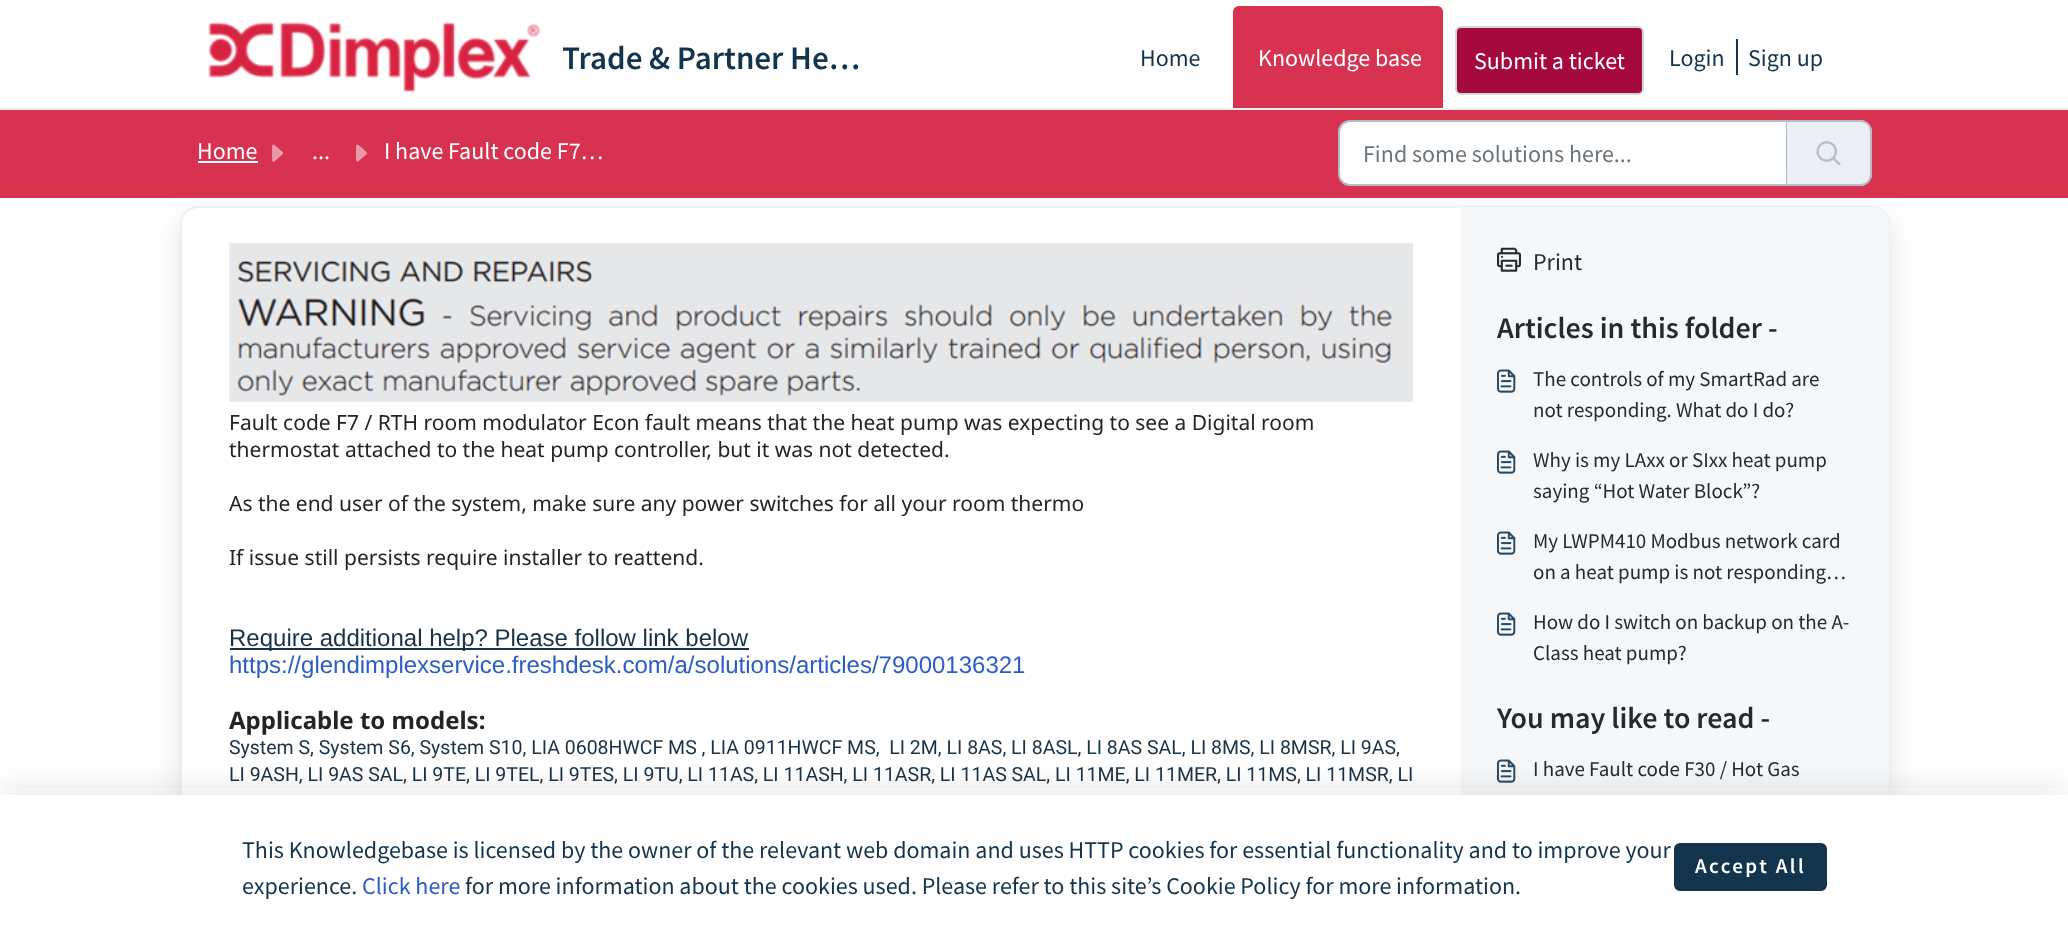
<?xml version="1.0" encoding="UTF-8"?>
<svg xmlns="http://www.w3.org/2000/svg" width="2068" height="938">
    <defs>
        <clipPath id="clip1"><rect x="563" y="38" width="304" height="39"/></clipPath>
        <clipPath id="clip2"><path d="M 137 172 H 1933 V 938 H 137 Z M 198 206 H 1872 C 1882 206 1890 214 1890 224 V 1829 C 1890 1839 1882 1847 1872 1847 H 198 C 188 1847 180 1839 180 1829 V 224 C 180 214 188 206 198 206 Z" clip-rule="evenodd"/></clipPath>
        <filter id="blur1" x="-50%" y="-200%" width="200%" height="500%"><feGaussianBlur stdDeviation="14"/></filter>
    </defs>
    <rect width="100%" height="100%" fill="#FFFFFF"/>
    <rect x="0" y="108" width="2068" height="2" fill="#EBEFF3"/>
    <image x="208" y="22" width="333" height="71" href="img_01.png"/>
    <g clip-path="url(#clip1)">
        <text x="562" y="69" font-family="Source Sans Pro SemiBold" font-size="33" font-weight="600" fill="#12344D">Trade &amp; Partner He…</text>
    </g>
    <text x="1140" y="66" font-family="Source Sans Pro" font-size="24" fill="#12344D">Home</text>
    <path d="M 1239 6 H 1437 C 1440.5 6 1443 8.5 1443 12 V 108 H 1233 V 12 C 1233 8.5 1235.5 6 1239 6 Z" fill="#D7324F"/>
    <text x="1258" y="66" font-family="Source Sans Pro" font-size="24" fill="#FFFFFF">Knowledge base</text>
    <rect x="1456" y="27" width="187" height="67" rx="5" fill="#A6093D" stroke="#CFD7DF" stroke-width="2"/>
    <text x="1474" y="69" font-family="Source Sans Pro" font-size="24" fill="#FFFFFF">Submit a ticket</text>
    <text x="1669" y="66" font-family="Source Sans Pro" font-size="24" fill="#12344D">Login</text>
    <rect x="1736" y="39" width="2" height="36" fill="#12344D"/>
    <text x="1748" y="66" font-family="Source Sans Pro" font-size="24" fill="#12344D">Sign up</text>
    <g clip-path="url(#clip2)">
        <rect x="180" y="215" width="1710" height="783" rx="18" fill="#27313A" fill-opacity="0.1" filter="url(#blur1)"/>
    </g>
    <rect x="0" y="110" width="2068" height="88" fill="#D7324F"/>
    <text x="197" y="159" font-family="Source Sans Pro" font-size="24" fill="#FFFFFF">Home</text>
    <rect x="198" y="161" width="60" height="2" fill="#FFFFFF"/>
    <image x="272" y="144" width="12" height="18" href="img_02.png"/>
    <text x="312" y="159" font-family="Source Sans Pro" font-size="24" fill="#FFFFFF">...</text>
    <image x="356" y="144" width="11" height="18" href="img_03.png"/>
    <text x="384" y="159" font-family="Source Sans Pro" font-size="24" fill="#FFFFFF">I have Fault code F7…</text>
    <path d="M 1350 121 H 1787 V 185 H 1350 C 1344 185 1339 180 1339 174 V 132 C 1339 126 1344 121 1350 121 Z" fill="#FFFFFF" stroke="#B1BDC8" stroke-width="2"/>
    <text x="1363" y="162" font-family="Source Sans Pro" font-size="24" fill="#6C757D">Find some solutions here...</text>
    <path d="M 1787 120 H 1860 C 1866.5 120 1872 125.5 1872 132 V 174 C 1872 180.5 1866.5 186 1860 186 H 1787 Z" fill="#EBEFF3"/>
    <path d="M 1786 120 H 1860 C 1867 120 1872 125 1872 132 V 174 C 1872 181 1867 186 1860 186 H 1786 Z M 1786 122 H 1860 C 1866 122 1870 126 1870 132 V 174 C 1870 180 1866 184 1860 184 H 1786 Z" fill="#B1BDC8" fill-rule="evenodd"/>
    <image x="1816" y="141" width="25" height="25" href="img_04.png"/>
    <rect x="181" y="207" width="1708" height="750" rx="17" fill="none" stroke="#EBEFF3" stroke-width="2"/>
    <image x="229" y="243" width="1184" height="159" href="img_05.png"/>
    <text font-family="Noto Sans" font-size="21" fill="#242424">
        <tspan x="229" y="430">Fault code F7 / RTH room modulator Econ fault means that the heat pump was expecting to see a Digital room</tspan>
        <tspan x="229" y="457">thermostat attached to the heat pump controller, but it was not detected.</tspan>
    </text>
    <text x="229" y="511" font-family="Noto Sans" font-size="21" fill="#242424">As the end user of the system, make sure any power switches for all your room thermo</text>
    <text x="229" y="565" font-family="Noto Sans" font-size="21" fill="#242424">If issue still persists require installer to reattend.</text>
    <rect x="230" y="648" width="519" height="2" fill="#183247"/>
    <text x="229" y="646" font-family="Liberation Sans" font-size="24" fill="#183247">Require additional help? Please follow link below</text>
    <text x="229" y="673" font-family="Liberation Sans" font-size="24" fill="#2C5CC5">https://glendimplexservice.freshdesk.com/a/solutions/articles/79000136321</text>
    <text x="229" y="729" font-family="Noto Sans" font-size="24" font-weight="700" fill="#242424">Applicable to models:</text>
    <text font-family="Roboto" font-size="19.5" fill="#183247" xml:space="preserve"><tspan x="229" y="754">System S, System S6, System S10, LIA 0608HWCF MS , LIA 0911HWCF MS,  LI 2M, LI 8AS, LI 8ASL, LI 8AS SAL, LI 8MS, LI 8MSR, LI 9AS,</tspan><tspan x="229" y="781">LI 9ASH, LI 9AS SAL, LI 9TE, LI 9TEL, LI 9TES, LI 9TU, LI 11AS, LI 11ASH, LI 11ASR, LI 11AS SAL, LI 11ME, LI 11MER, LI 11MS, LI 11MSR, LI</tspan></text>
    <path d="M 1461 207 H 1871 C 1881 207 1889 215 1889 225 V 938 C 1889 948 1881 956 1871 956 H 1461 Z" fill="#F5F7F9"/>
    <image x="1497" y="247" width="24" height="25" href="img_06.png"/>
    <text x="1533" y="270" font-family="Source Sans Pro" font-size="24" fill="#282832">Print</text>
    <text x="1497" y="338" font-family="Source Sans Pro SemiBold" font-size="30" font-weight="600" fill="#282832">Articles in this folder -</text>
    <image x="1497" y="369" width="19" height="24" href="img_07.png"/>
    <text font-family="Source Sans Pro" font-size="21" fill="#282832">
        <tspan x="1533" y="386">The controls of my SmartRad are</tspan>
        <tspan x="1533" y="417">not responding. What do I do?</tspan>
    </text>
    <image x="1497" y="450" width="19" height="24" href="img_07.png"/>
    <text font-family="Source Sans Pro" font-size="21" fill="#282832">
        <tspan x="1533" y="467">Why is my LAxx or SIxx heat pump</tspan>
        <tspan x="1533" y="498">saying “Hot Water Block”?</tspan>
    </text>
    <image x="1497" y="531" width="19" height="24" href="img_07.png"/>
    <text font-family="Source Sans Pro" font-size="21" fill="#282832">
        <tspan x="1533" y="548">My LWPM410 Modbus network card</tspan>
        <tspan x="1533" y="579">on a heat pump is not responding…</tspan>
    </text>
    <image x="1497" y="612" width="19" height="24" href="img_07.png"/>
    <text font-family="Source Sans Pro" font-size="21" fill="#282832">
        <tspan x="1533" y="629">How do I switch on backup on the A-</tspan>
        <tspan x="1533" y="660">Class heat pump?</tspan>
    </text>
    <text x="1497" y="728" font-family="Source Sans Pro SemiBold" font-size="30" font-weight="600" fill="#282832">You may like to read -</text>
    <image x="1497" y="759" width="19" height="24" href="img_07.png"/>
    <text x="1533" y="776" font-family="Source Sans Pro" font-size="21" fill="#282832">I have Fault code F30 / Hot Gas</text>
    <rect x="0" y="788" width="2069" height="144" fill="#27313A" fill-opacity="0.1" filter="url(#blur1)"/>
    <rect x="0" y="795" width="2068" height="143" fill="#FFFFFF"/>
    <text font-family="Source Sans Pro" font-size="24" fill="#12344D">
        <tspan x="242" y="858">This Knowledgebase is licensed by the owner of the relevant web domain and uses HTTP cookies for essential functionality and to improve your</tspan>
        <tspan x="242" y="894">experience.</tspan>
    </text>
    <text x="362" y="894" font-family="Source Sans Pro" font-size="24" fill="#2C5CC5">Click here</text>
    <text x="465" y="894" font-family="Source Sans Pro" font-size="24" fill="#12344D">for more information about the cookies used. Please refer to this site’s Cookie Policy for more information.</text>
    <rect x="1675" y="844" width="151" height="46" rx="5" fill="#12344D" stroke="#12344D" stroke-width="2"/>
    <text x="1695" y="873" font-family="Source Sans Pro SemiBold" font-size="21" font-weight="600" letter-spacing="2.4" fill="#FFFFFF">Accept All</text>
</svg>
